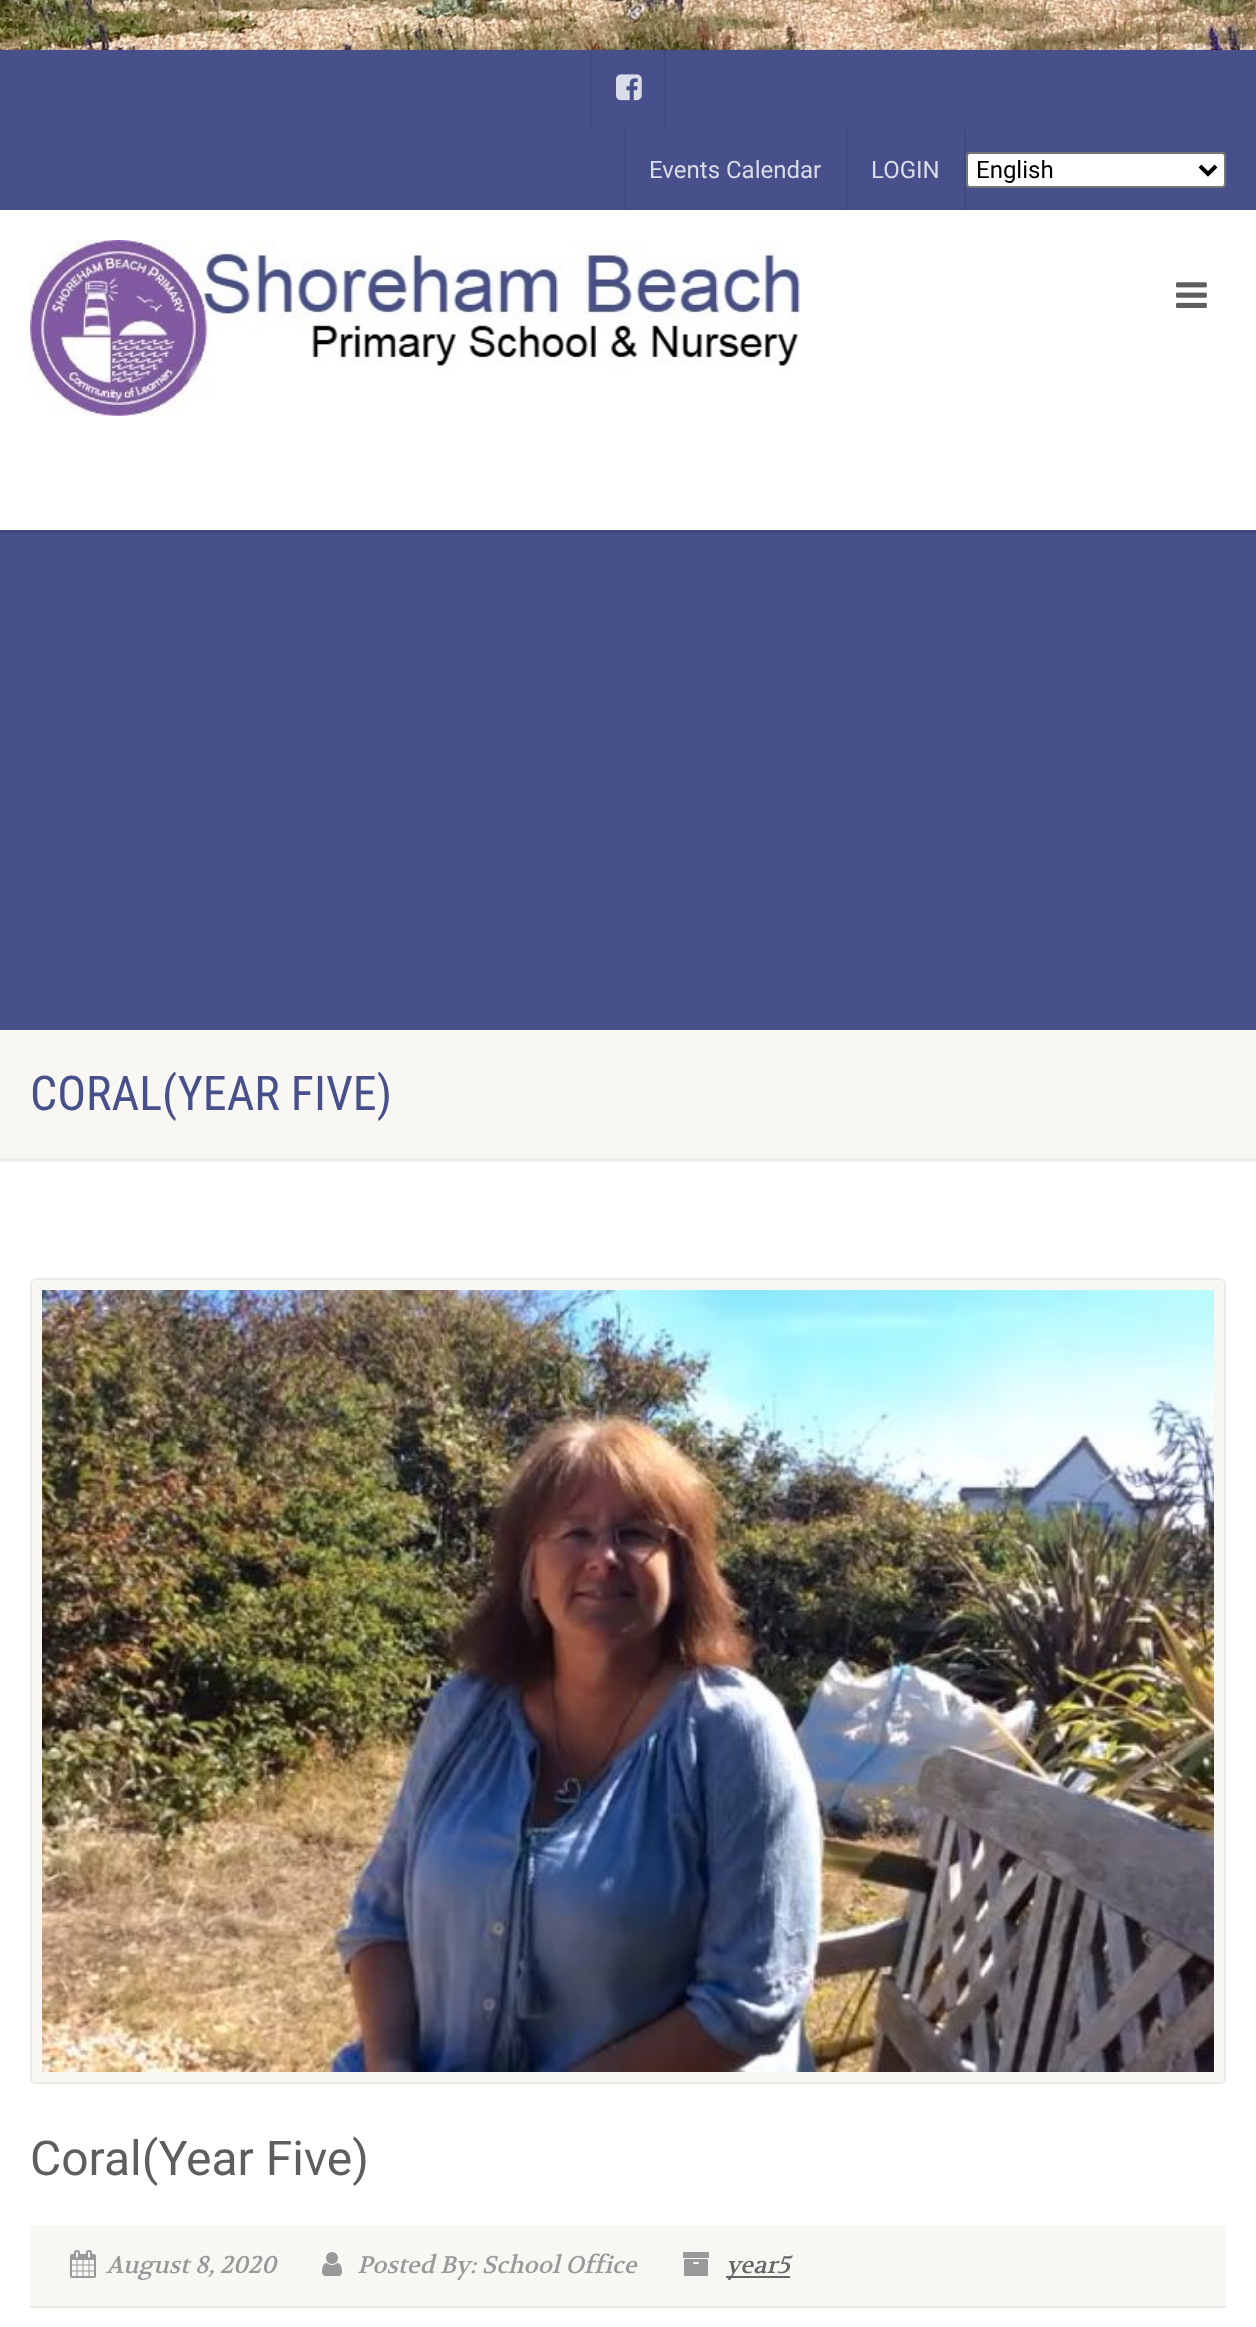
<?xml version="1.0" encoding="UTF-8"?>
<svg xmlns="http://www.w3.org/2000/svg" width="1256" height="2327">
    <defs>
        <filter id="blur1" x="-50%" y="-200%" width="200%" height="500%"><feGaussianBlur stdDeviation="2"/></filter>
    </defs>
    <rect width="100%" height="100%" fill="#FFFFFF"/>
    <image x="0" y="0" width="1256" height="50" href="img_01.png"/>
    <rect x="0" y="50" width="1256" height="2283" fill="#000000" fill-opacity="0.2" filter="url(#blur1)"/>
    <rect x="0" y="210" width="1256" height="2117" fill="#FFFFFF"/>
    <rect x="0" y="50" width="1256" height="160" fill="#47508B"/>
    <rect x="664" y="50" width="2" height="80" fill="#414A80"/>
    <rect x="590" y="50" width="2" height="80" fill="#414A80"/>
    <image x="616" y="74" width="26" height="27" href="img_02.png"/>
    <rect x="846" y="130" width="2" height="80" fill="#414A80"/>
    <rect x="624" y="130" width="2" height="80" fill="#414A80"/>
    <text x="649" y="178" font-family="Roboto" font-size="24" fill="#DADCE8">Events Calendar</text>
    <rect x="964" y="130" width="2" height="80" fill="#414A80"/>
    <text x="871" y="178" font-family="Roboto" font-size="24" fill="#DADCE8">LOGIN</text>
    <rect x="967" y="153" width="258" height="34" rx="3" fill="#FFFFFF" stroke="#767676" stroke-width="2"/>
    <path d="M 1200 166 L 1208 174 L 1216 166" fill="none" stroke="#000000" stroke-width="4"/>
    <text x="976" y="178" font-family="Roboto" font-size="24" fill="#000000">English</text>
    <rect x="0" y="530" width="1256" height="4" fill="#40487D"/>
    <image x="30" y="240" width="770" height="176" href="img_03.png"/>
    <image x="1176" y="282" width="31" height="26" href="img_04.png"/>
    <rect x="0" y="534" width="1256" height="496" fill="#47508B"/>
    <rect x="0" y="1158" width="1256" height="4" fill="#EDEDED"/>
    <rect x="0" y="1030" width="1256" height="128" fill="#F8F7F3"/>
    <text x="30" y="1110" font-family="Roboto Condensed" font-size="48" fill="#47508B">CORAL(YEAR FIVE)</text>
    <rect x="31" y="1279" width="1194" height="804" rx="5" fill="#F8F7F3" stroke="#ECEAE4" stroke-width="2"/>
    <image x="42" y="1290" width="1172" height="782" href="img_05.png"/>
    <text x="30" y="2175" font-family="Roboto" font-size="48" fill="#5E5E5E">Coral(Year Five)</text>
    <rect x="30" y="2226" width="1196" height="80" fill="#F8F7F3"/>
    <rect x="30" y="2306" width="1196" height="2" fill="#ECEAE4"/>
    <image x="70" y="2250" width="26" height="28" href="img_06.png"/>
    <text x="106" y="2273" font-family="Volkhov" font-size="24" font-style="italic" fill="#999999">August 8, 2020</text>
    <image x="322" y="2252" width="20" height="24" href="img_07.png"/>
    <text x="357" y="2273" font-family="Volkhov" font-size="24" font-style="italic" fill="#999999">Posted By: School Office</text>
    <image x="683" y="2252" width="26" height="24" href="img_08.png"/>
    <rect x="726" y="2276" width="64" height="2" fill="#666666"/>
    <text x="726" y="2273" font-family="Volkhov" font-size="24" font-style="italic" fill="#666666">year5</text>
</svg>
